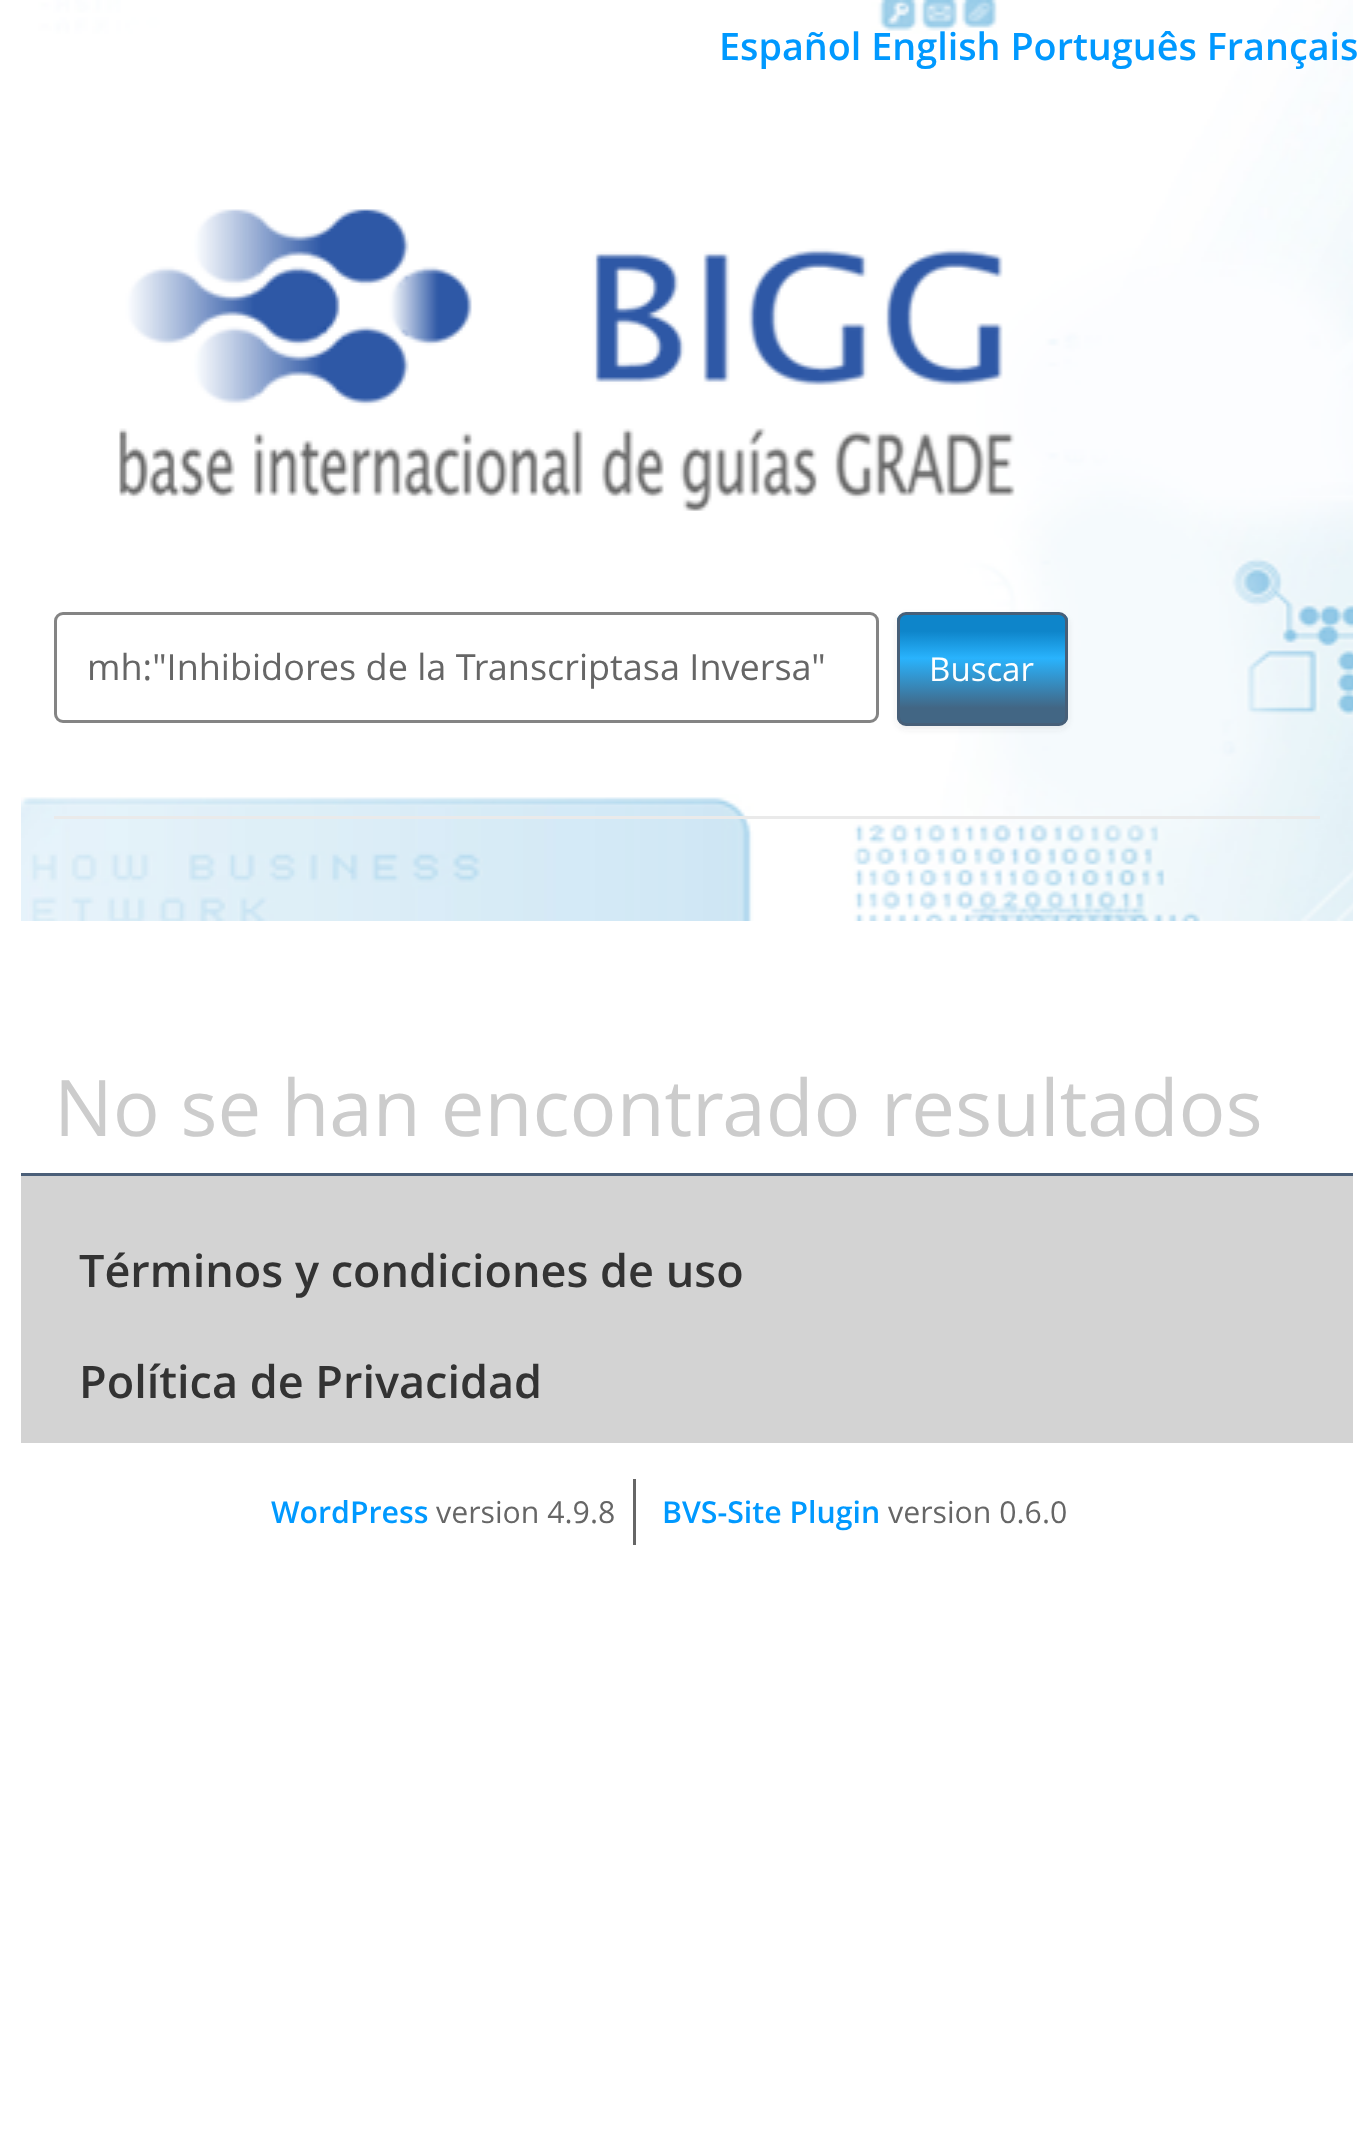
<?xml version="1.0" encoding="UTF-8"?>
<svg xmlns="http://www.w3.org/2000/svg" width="1372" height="2155">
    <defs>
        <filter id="blur1" x="-50%" y="-200%" width="200%" height="500%"><feGaussianBlur stdDeviation="3"/></filter>
        <clipPath id="clip1"><rect x="897" y="612" width="171" height="114" rx="9"/></clipPath>
        <linearGradient id="g1" gradientUnits="userSpaceOnUse" x1="900" y1="723" x2="900" y2="615"><stop offset="0.14" stop-color="#426684"/><stop offset="0.6" stop-color="#29B3FD"/><stop offset="0.85" stop-color="#0E85CA"/></linearGradient>
    </defs>
    <rect width="100%" height="100%" fill="#FFFFFF"/>
    <image x="21" y="0" width="1332" height="921" href="img_01.png"/>
    <text x="719" y="60" font-family="Open Sans" font-size="37.75" font-weight="600" fill="#0099FF">Español English Português Français</text>
    <rect x="54" y="816" width="1266" height="3" fill="#EAEAEA"/>
    <rect x="55.5" y="613.5" width="822" height="108" rx="7.5" fill="none" stroke="#848484" stroke-width="3"/>
    <text x="87" y="680" font-family="Open Sans" font-size="36" fill="#666666">mh:"Inhibidores de la Transcriptasa Inversa"</text>
    <rect x="897" y="615" width="171" height="114" rx="9" fill="#404040" fill-opacity="0.1" filter="url(#blur1)"/>
    <g clip-path="url(#clip1)">
        <rect x="897" y="615" width="171" height="108" fill="url(#g1)"/>
    </g>
    <rect x="898.5" y="613.5" width="168" height="111" rx="7.5" fill="none" stroke="#475F78" stroke-width="3"/>
    <text x="929" y="681" font-family="Open Sans" font-size="33" fill="#FFFFFF">Buscar</text>
    <text x="54" y="1136" font-family="Open Sans" font-size="78" fill="#CCCCCC">No se han encontrado resultados</text>
    <rect x="21" y="1176" width="1332" height="267" fill="#D3D3D3"/>
    <rect x="21" y="1173" width="1332" height="3" fill="#4B5F78"/>
    <text x="79" y="1287" font-family="Open Sans" font-size="45" font-weight="600" fill="#333333">Términos y condiciones de uso</text>
    <text x="79" y="1398" font-family="Open Sans" font-size="45" font-weight="600" fill="#333333">Política de Privacidad</text>
    <rect x="633" y="1479" width="3" height="66" fill="#666666"/>
    <text x="271" y="1523" font-family="Open Sans" font-size="30.25" font-weight="600" fill="#0099FF">WordPress</text>
    <text x="436" y="1523" font-family="Open Sans" font-size="30.25" fill="#666666">version 4.9.8</text>
    <text x="662" y="1523" font-family="Open Sans" font-size="30.25" font-weight="600" fill="#0099FF">BVS-Site Plugin</text>
    <text x="888" y="1523" font-family="Open Sans" font-size="30.25" fill="#666666">version 0.6.0</text>
</svg>
